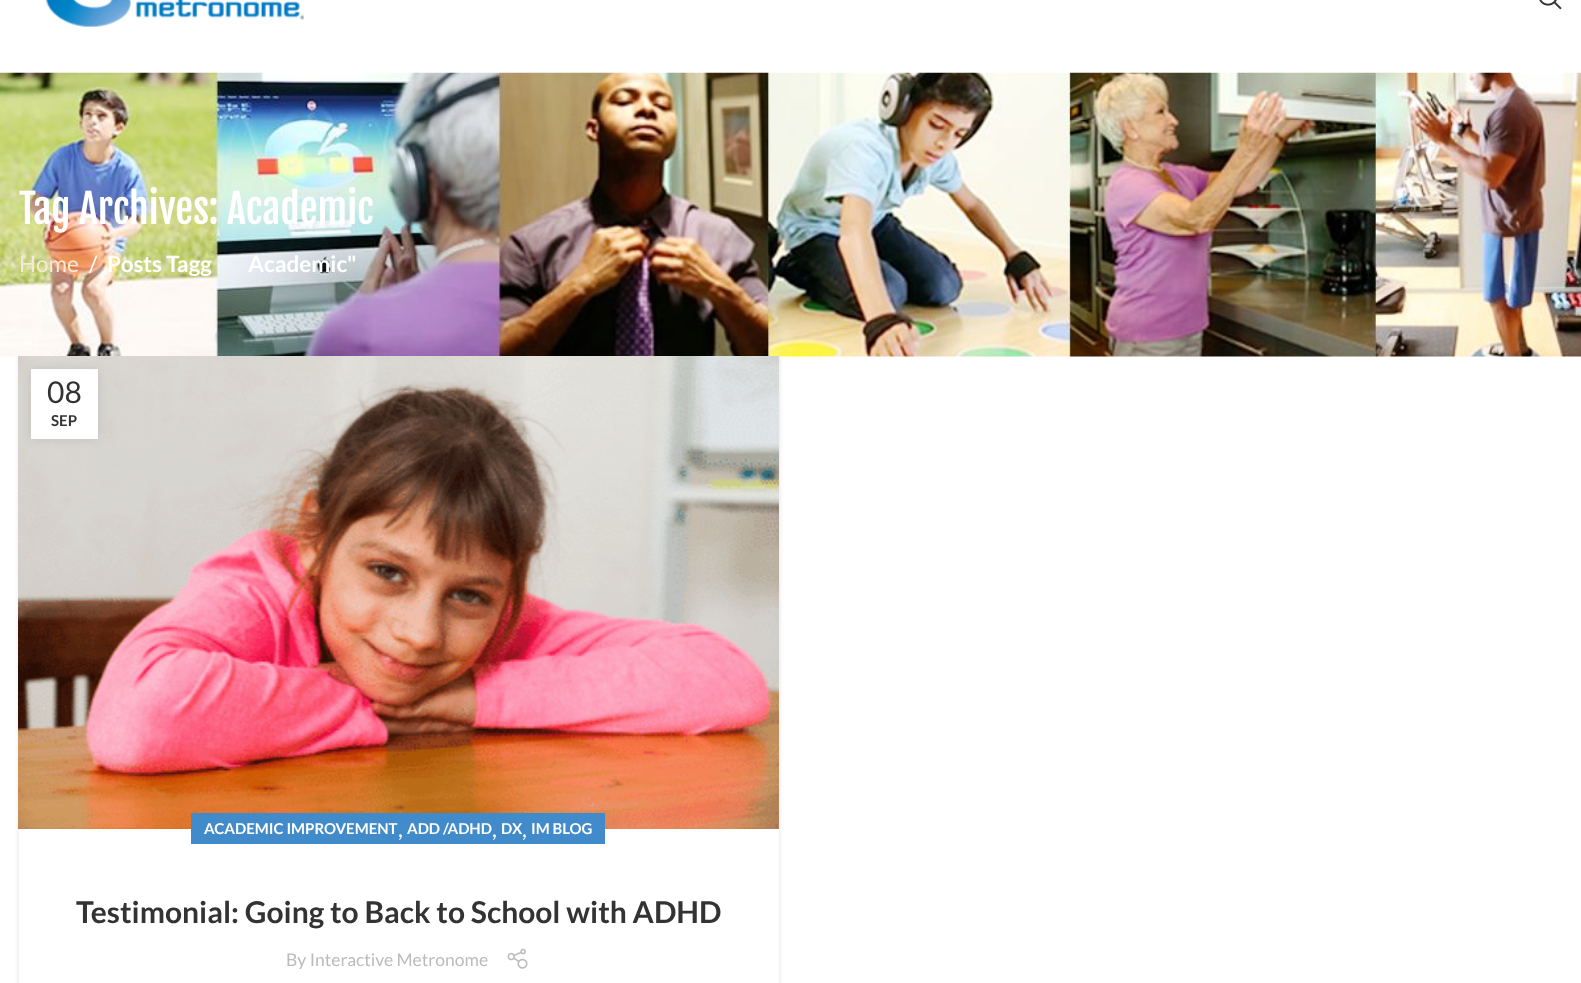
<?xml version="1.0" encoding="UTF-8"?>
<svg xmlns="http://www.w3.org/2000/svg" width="1581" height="983">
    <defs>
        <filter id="blur1" x="-50%" y="-200%" width="200%" height="500%"><feGaussianBlur stdDeviation="2.5"/></filter>
        <filter id="blur2" x="-50%" y="-200%" width="200%" height="500%"><feGaussianBlur stdDeviation="5.5"/></filter>
    </defs>
    <rect width="100%" height="100%" fill="#FFFFFF"/>
    <image x="45" y="0" width="259" height="27" href="img_01.png"/>
    <image x="1539" y="0" width="23" height="10" href="img_02.png"/>
    <rect x="19" y="356" width="760" height="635" fill="#000000" fill-opacity="0.12" filter="url(#blur1)"/>
    <image x="0" y="72" width="1581" height="285" href="img_03.png"/>
    <text x="19" y="224" font-family="Fjalla One" font-size="40" fill="#FFFFFF">Tag Archives: Academic</text>
    <text x="19" y="272" font-family="Lato" font-size="22.5" fill="#F3EAD7">Home</text>
    <text x="89" y="272" font-family="Lato" font-size="22.5" fill="#FFFFFF">/</text>
    <text x="107" y="272" font-family="Lato" font-size="22.5" font-weight="700" fill="#FFFFFF">Posts Tagg</text>
    <text x="248" y="272" font-family="Lato" font-size="22.5" font-weight="700" fill="#FFFFFF">Academic"</text>
    <image x="18" y="356" width="761" height="473" href="img_04.png"/>
    <rect x="31" y="369" width="67" height="70" fill="#000000" fill-opacity="0.1" filter="url(#blur2)"/>
    <rect x="31" y="369" width="67" height="70" fill="#FFFFFF"/>
    <text x="47" y="403" font-family="Lato" font-size="30" fill="#333333">08</text>
    <text x="51" y="426" font-family="Lato" font-size="15" font-weight="700" fill="#333333">SEP</text>
    <rect x="19" y="829" width="760" height="154" fill="#FFFFFF"/>
    <rect x="191" y="813" width="414" height="31" fill="#428BCA"/>
    <text x="204" y="834" font-family="Lato" font-size="15" font-weight="700" fill="#FFFFFF">ACADEMIC IMPROVEMENT</text>
    <text x="407" y="834" font-family="Lato" font-size="15" font-weight="700" fill="#FFFFFF">ADD /ADHD</text>
    <text x="501" y="834" font-family="Lato" font-size="15" font-weight="700" fill="#FFFFFF">DX</text>
    <text x="531" y="834" font-family="Lato" font-size="15" font-weight="700" fill="#FFFFFF">IM BLOG</text>
    <text x="398" y="837" font-family="Lato" font-size="22.5" fill="#FFFFFF">,</text>
    <text x="492" y="837" font-family="Lato" font-size="22.5" fill="#FFFFFF">,</text>
    <text x="522" y="837" font-family="Lato" font-size="22.5" fill="#FFFFFF">,</text>
    <text x="76" y="923" font-family="Lato" font-size="30" font-weight="700" fill="#333333">Testimonial: Going to Back to School with ADHD</text>
    <text x="286" y="966" font-family="Lato" font-size="17.5" fill="#BBBBBB">By Interactive Metronome</text>
    <image x="507" y="948" width="21" height="21" href="img_05.png"/>
</svg>
